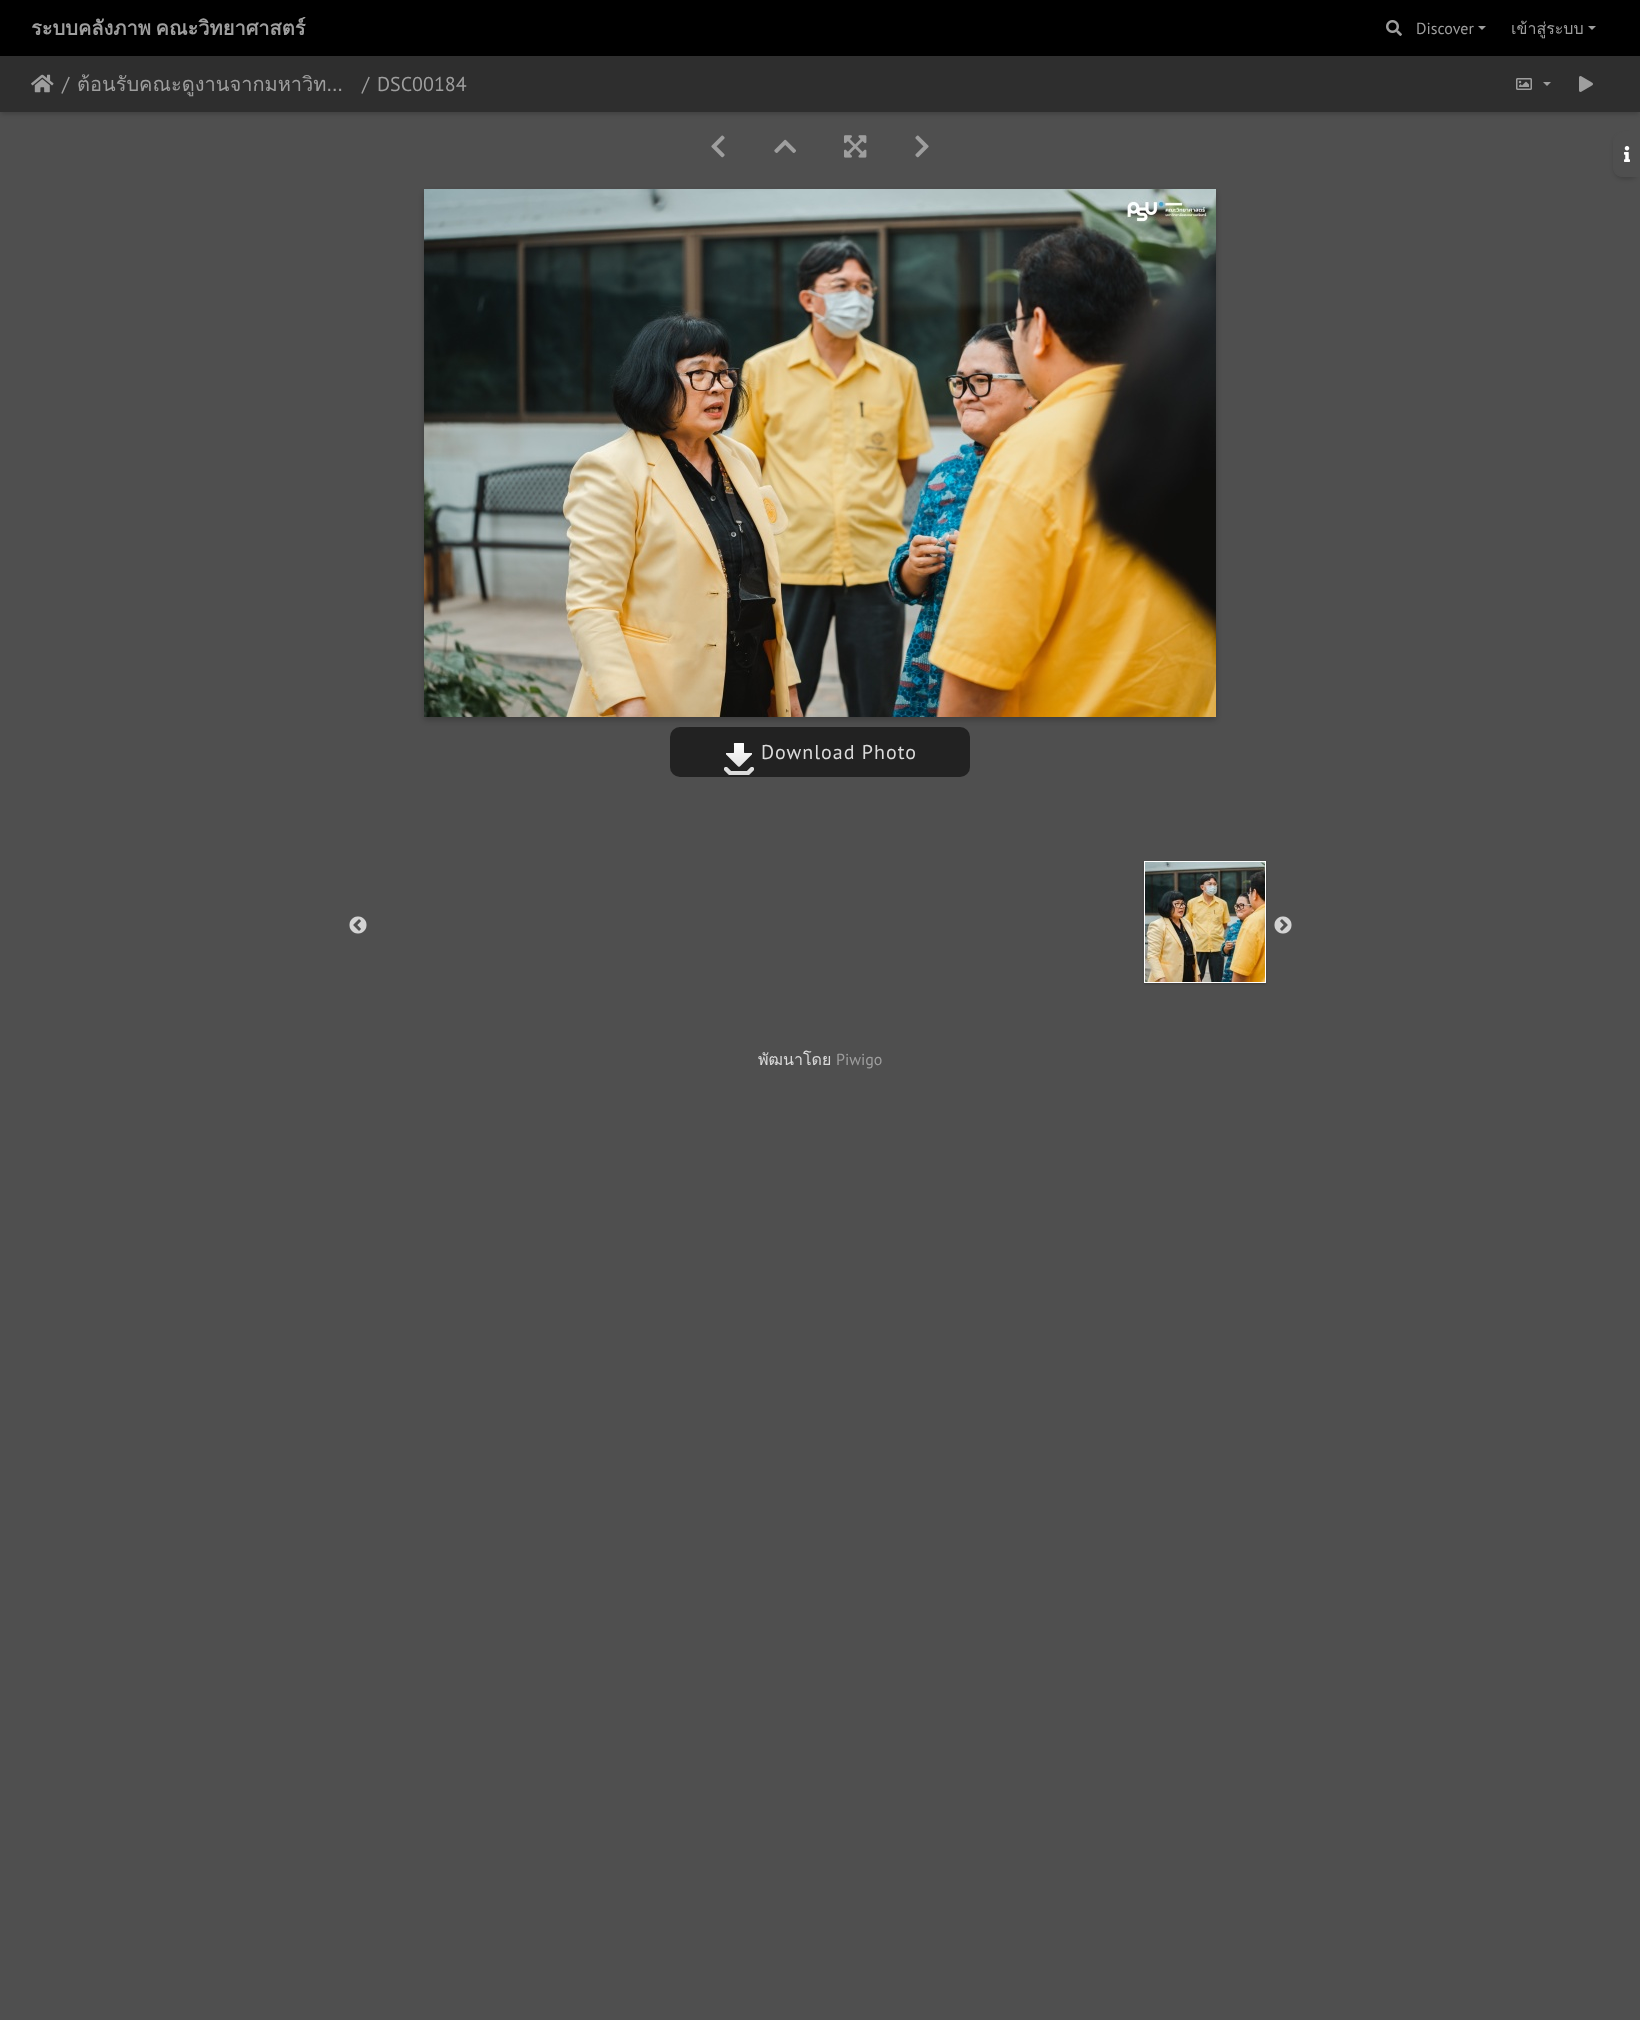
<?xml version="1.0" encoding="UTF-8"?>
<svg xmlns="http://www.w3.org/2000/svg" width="1640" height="2020">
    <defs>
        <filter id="blur1" x="-50%" y="-200%" width="200%" height="500%"><feGaussianBlur stdDeviation="2.5"/></filter>
        <filter id="blur2" x="-50%" y="-200%" width="200%" height="500%"><feGaussianBlur stdDeviation="3"/></filter>
        <filter id="blur3" x="-50%" y="-200%" width="200%" height="500%"><feGaussianBlur stdDeviation="1"/></filter>
    </defs>
    <rect width="100%" height="100%" fill="#4F4F4F"/>
    <rect x="1" y="60" width="1638" height="54" fill="#000000" fill-opacity="0.2" filter="url(#blur1)"/>
    <rect x="0" y="0" width="1640" height="56" fill="#000000"/>
    <text x="31" y="35" word-spacing="-2" font-family="Loma" font-size="20" font-weight="700" fill="#9E9E9E">ระบบคลังภาพ คณะวิทยาศาสตร์</text>
    <image x="1386" y="20" width="16" height="16" href="img_01.png"/>
    <text x="1416" y="34" font-family="PT Sans" font-size="16" fill="#9E9E9E">Discover</text>
    <path d="M 1478 26 H 1486 L 1482 30 Z" fill="#9E9E9E"/>
    <text x="1511" y="34" font-family="Loma" font-size="16" fill="#9E9E9E">เข้าสู่ระบบ</text>
    <path d="M 1588 26 H 1596 L 1592 30 Z" fill="#9E9E9E"/>
    <rect x="0" y="56" width="1640" height="56" fill="#2E2E2E"/>
    <image x="31" y="74" width="23" height="19" href="img_02.png"/>
    <text x="62" y="91" font-family="PT Sans" font-size="20" fill="#9E9E9E">/</text>
    <text x="77" y="91" font-family="Loma" font-size="20" fill="#9E9E9E">ต้อนรับคณะดูงานจากมหาวิท…</text>
    <text x="362" y="91" font-family="PT Sans" font-size="20" fill="#9E9E9E">/</text>
    <text x="377" y="91" font-family="PT Sans" font-size="20" fill="#9E9E9E">DSC00184</text>
    <image x="1516" y="78" width="16" height="12" href="img_03.png"/>
    <path d="M 1543 82 H 1551 L 1547 86 Z" fill="#9E9E9E"/>
    <image x="1579" y="76" width="14" height="16" href="img_04.png"/>
    <image x="711" y="135" width="14" height="23" href="img_05.png"/>
    <image x="774" y="139" width="22" height="14" href="img_06.png"/>
    <image x="844" y="135" width="23" height="23" href="img_07.png"/>
    <image x="915" y="135" width="14" height="23" href="img_08.png"/>
    <rect x="1614" y="135" width="25" height="44" rx="9" fill="#000000" fill-opacity="0.2" filter="url(#blur1)"/>
    <path d="M 1623 131 H 1640 V 177 H 1623 C 1617.5 177 1613 172.5 1613 167 V 141 C 1613 135.5 1617.5 131 1623 131 Z" fill="#4F4F4F"/>
    <path d="M 1623 131 H 1640 V 177 H 1623 C 1617 177 1613 173 1613 167 V 141 C 1613 135 1617 131 1623 131 Z M 1623 132 H 1640 V 176 H 1623 C 1618 176 1614 172 1614 167 V 141 C 1614 136 1618 132 1623 132 Z" fill="#4F4F4F" fill-rule="evenodd"/>
    <image x="1624" y="146" width="6" height="16" href="img_09.png"/>
    <rect x="670" y="727" width="300" height="50" rx="10" fill="#222222"/>
    <rect x="424" y="192" width="792" height="528" fill="#000000" fill-opacity="0.23" filter="url(#blur2)"/>
    <image x="424" y="189" width="792" height="528" href="img_10.png"/>
    <image x="724" y="743" width="30" height="32" href="img_11.png"/>
    <text x="761" y="759" font-family="PT Sans" font-size="20" letter-spacing="1" fill="#DBDBDB">Download Photo</text>
    <image x="349" y="916" width="18" height="18" href="img_12.png"/>
    <rect x="1144" y="862" width="122" height="122" fill="#000000" fill-opacity="0.24" filter="url(#blur3)"/>
    <rect x="1144.5" y="861.5" width="121" height="121" fill="none" stroke="#FFFFFF"/>
    <image x="1145" y="862" width="120" height="120" href="img_13.png"/>
    <image x="1274" y="916" width="18" height="18" href="img_14.png"/>
    <text x="758" y="1065" font-family="Loma" font-size="16" fill="#DBDBDB">พัฒนาโดย</text>
    <text x="836" y="1065" font-family="PT Sans" font-size="16" fill="#9E9E9E">Piwigo</text>
</svg>
